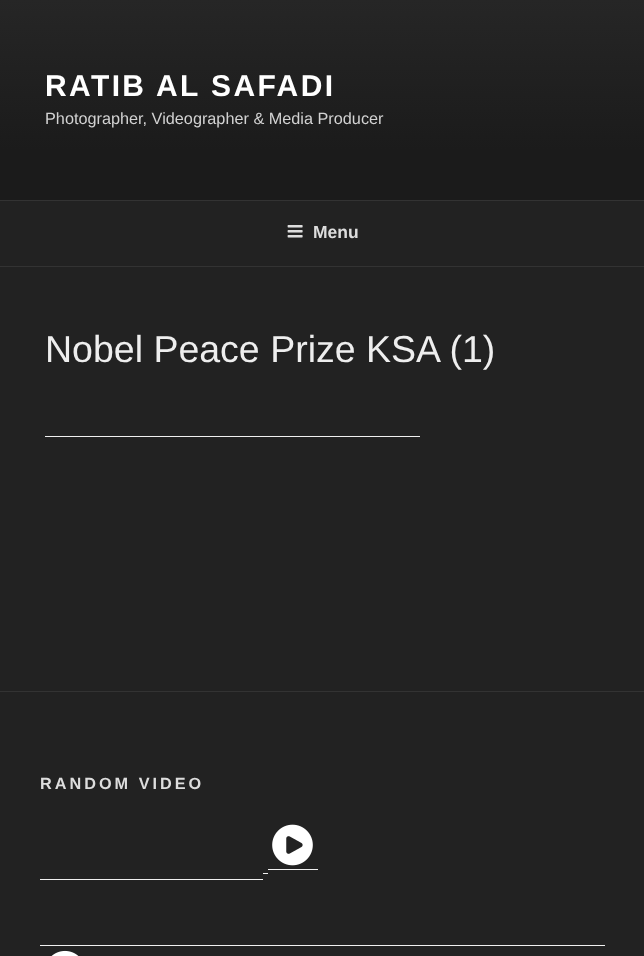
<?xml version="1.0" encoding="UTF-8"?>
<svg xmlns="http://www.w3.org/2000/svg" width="644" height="956">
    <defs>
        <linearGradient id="g1" gradientUnits="userSpaceOnUse" x1="323" y1="0" x2="323" y2="200"><stop offset="0" stop-color="#262626"/><stop offset="0.75" stop-color="#1B1B1B"/><stop offset="1" stop-color="#1B1B1B"/></linearGradient>
    </defs>
    <rect width="100%" height="100%" fill="#222222"/>
    <rect x="0" y="0" width="644" height="200" fill="url(#g1)"/>
    <text x="45" y="96" font-family="Liberation Sans" font-size="30" font-weight="700" letter-spacing="2.4" fill="#FFFFFF">RATIB AL SAFADI</text>
    <text x="45" y="124" font-family="Liberation Sans" font-size="16.25" fill="#D2D2D2">Photographer, Videographer &amp; Media Producer</text>
    <rect x="0" y="200" width="644" height="1" fill="#333333"/>
    <rect x="0" y="266" width="644" height="1" fill="#333333"/>
    <image x="287" y="225" width="16" height="13" href="img_01.png"/>
    <text x="313" y="238" font-family="Liberation Sans" font-size="17.5" font-weight="700" fill="#DDDDDD">Menu</text>
    <text x="45" y="362" font-family="Liberation Sans" font-size="37.5" fill="#EEEEEE">Nobel Peace Prize KSA (1)</text>
    <rect x="45" y="436" width="375" height="1" fill="#F0F0F0"/>
    <rect x="0" y="691" width="644" height="1" fill="#333333"/>
    <text x="40" y="789" font-family="Liberation Sans" font-size="16.25" font-weight="700" letter-spacing="3" fill="#DDDDDD">RANDOM VIDEO</text>
    <image x="272" y="824" width="41" height="42" href="img_02.png"/>
    <rect x="268" y="869" width="50" height="1" fill="#F0F0F0"/>
    <rect x="263" y="873" width="5" height="1" fill="#F0F0F0"/>
    <rect x="40" y="879" width="223" height="1" fill="#F0F0F0"/>
    <rect x="40" y="945" width="565" height="1" fill="#F0F0F0"/>
    <image x="51" y="950" width="28" height="6" href="img_03.png"/>
</svg>
